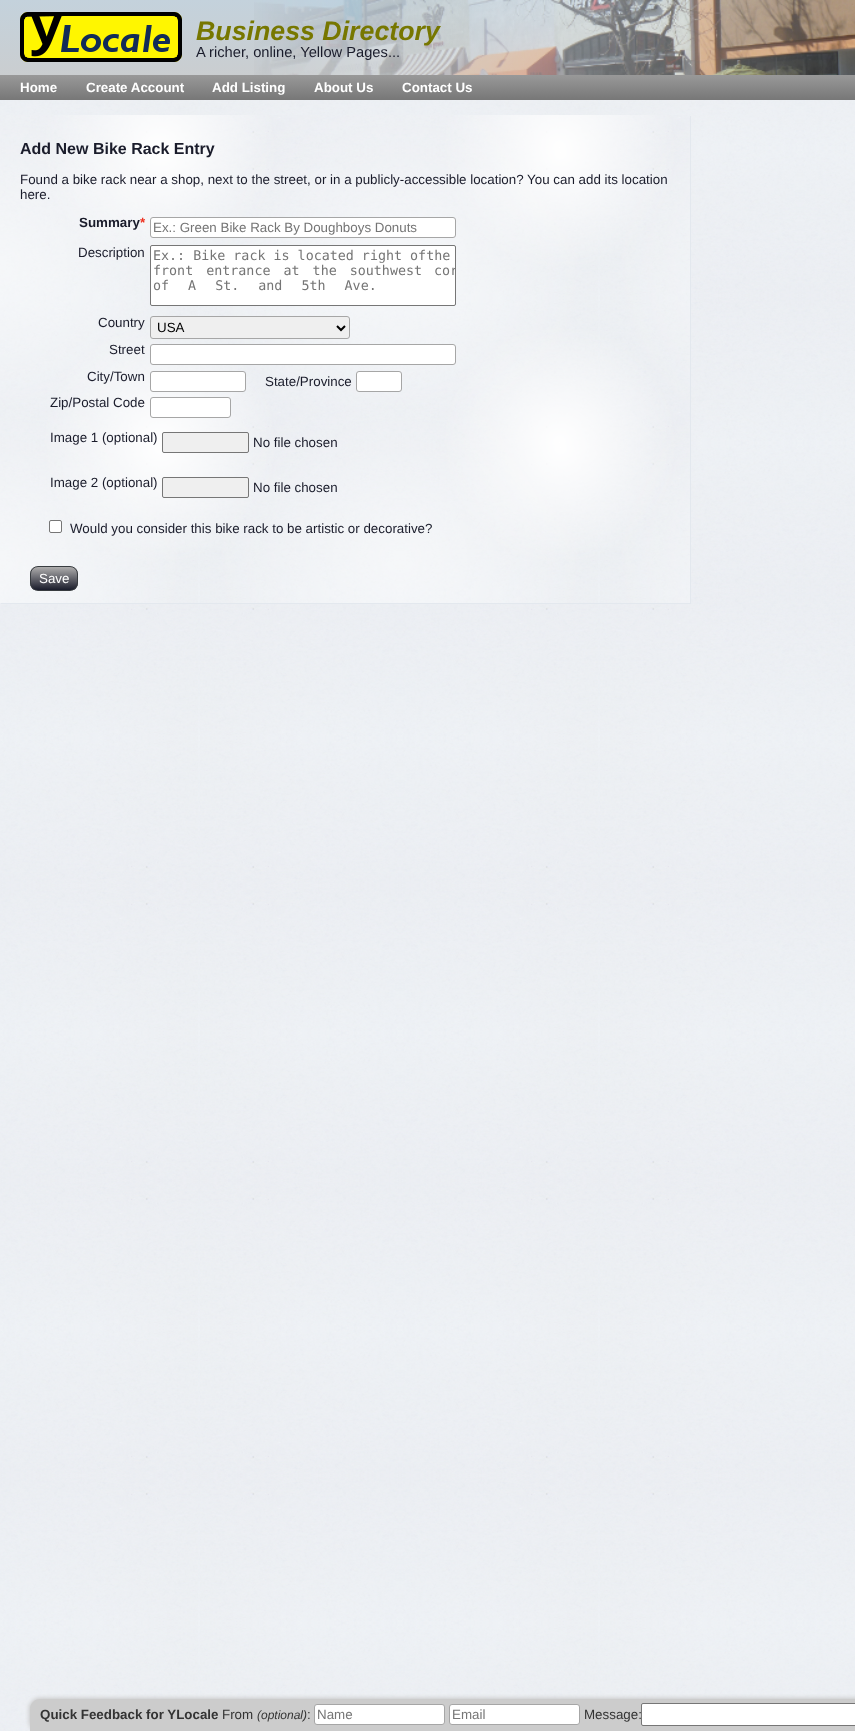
<?xml version="1.0" encoding="UTF-8"?>
<svg xmlns="http://www.w3.org/2000/svg" width="855" height="1731">
    <defs>
        <linearGradient id="g1" gradientUnits="userSpaceOnUse" x1="500" y1="0" x2="500" y2="100"><stop offset="0" stop-color="#C4D2DC"/><stop offset="1" stop-color="#CCCCCC"/></linearGradient>
        <linearGradient id="g2" gradientUnits="userSpaceOnUse" x1="500" y1="75" x2="500" y2="100"><stop offset="0" stop-color="#999999"/><stop offset="1" stop-color="#777777"/></linearGradient>
        <filter id="blur1" x="-50%" y="-200%" width="200%" height="500%"><feGaussianBlur stdDeviation="0.5"/></filter>
        <clipPath id="clip1"><rect x="151" y="246" width="304" height="59"/></clipPath>
        <clipPath id="clip2"><rect x="30" y="566" width="48" height="25" rx="8"/></clipPath>
        <linearGradient id="g3" gradientUnits="userSpaceOnUse" x1="54" y1="567" x2="54" y2="590"><stop offset="0" stop-color="#AEADAD"/><stop offset="1" stop-color="#1A1C2B"/></linearGradient>
        <filter id="blur2" x="-50%" y="-200%" width="200%" height="500%"><feGaussianBlur stdDeviation="2"/></filter>
    </defs>
    <rect width="100%" height="100%" fill="#FFFFFF"/>
    <image x="0" y="100" width="855" height="1631" href="img_01.png"/>
    <rect x="0" y="0" width="855" height="75" fill="url(#g1)"/>
    <image x="20" y="12" width="162" height="50" href="img_02.png"/>
    <image x="254" y="0" width="601" height="75" href="img_03.png"/>
    <text x="196" y="40" font-family="Liberation Sans" font-size="26.75" font-weight="700" font-style="italic" fill="#777700">Business Directory</text>
    <text x="196" y="57" font-family="Liberation Sans" font-size="14.7" fill="#1A1C2B">A richer, online, Yellow Pages...</text>
    <rect x="0" y="75" width="855" height="25" fill="url(#g2)"/>
    <text x="20" y="92" font-family="Liberation Sans" font-size="13.35" font-weight="700" fill="#FFFFFF">Home</text>
    <text x="86" y="92" font-family="Liberation Sans" font-size="13.35" font-weight="700" fill="#FFFFFF">Create Account</text>
    <text x="212" y="92" font-family="Liberation Sans" font-size="13.35" font-weight="700" fill="#FFFFFF">Add Listing</text>
    <text x="314" y="92" font-family="Liberation Sans" font-size="13.35" font-weight="700" fill="#FFFFFF">About Us</text>
    <text x="402" y="92" font-family="Liberation Sans" font-size="13.35" font-weight="700" fill="#FFFFFF">Contact Us</text>
    <rect x="1" y="116" width="690" height="488" fill="#E3E8EE" filter="url(#blur1)"/>
    <image x="0" y="115" width="690" height="488" href="img_04.png"/>
    <text x="20" y="154" font-family="Liberation Sans" font-size="16" font-weight="700" fill="#1A1C2B">Add New Bike Rack Entry</text>
    <text font-family="Liberation Sans" font-size="13.35" fill="#1A1C2B">
        <tspan x="20" y="184">Found a bike rack near a shop, next to the street, or in a publicly-accessible location? You can add its location</tspan>
        <tspan x="20" y="199">here.</tspan>
    </text>
    <text x="79" y="227" font-family="Liberation Sans" font-size="13.35" font-weight="700" fill="#1A1C2B">Summary</text>
    <text x="140" y="227" font-family="Liberation Sans" font-size="13.35" font-weight="700" fill="#EE3322">*</text>
    <rect x="150.5" y="217.5" width="305" height="20" rx="2.5" fill="#FFFFFF" stroke="#A6A6A6"/>
    <text x="153" y="232" font-family="Liberation Sans" font-size="13.35" fill="#757575">Ex.: Green Bike Rack By Doughboys Donuts</text>
    <text x="78" y="257" font-family="Liberation Sans" font-size="13.35" fill="#1A1C2B">Description</text>
    <rect x="150.5" y="245.5" width="305" height="60" rx="1.5" fill="#FFFFFF" stroke="#767676"/>
    <text font-family="DejaVu Sans Mono" font-size="13.35" fill="#757575">
        <tspan x="153" y="260">Ex.: Bike rack is located right ofthe</tspan>
        <tspan x="153" y="275" word-spacing="5">front entrance at the southwest</tspan>
    </text>
    <g clip-path="url(#clip1)">
        <text x="434" y="275" font-family="DejaVu Sans Mono" font-size="13.35" fill="#757575">cor</text>
    </g>
    <text x="153" y="290" word-spacing="11" font-family="DejaVu Sans Mono" font-size="13.35" fill="#757575">of A St. and 5th Ave.</text>
    <text x="98" y="327" font-family="Liberation Sans" font-size="13.35" fill="#1A1C2B">Country</text>
    <rect x="150.5" y="316.5" width="199" height="22" rx="2.5" fill="#EFEFEF" stroke="#A6A6A6"/>
    <path d="M 337 326 L 341 330 L 345 326" fill="none" stroke="#000000" stroke-width="2"/>
    <text x="157" y="332" font-family="Liberation Sans" font-size="13.35" fill="#000000">USA</text>
    <text x="109" y="354" font-family="Liberation Sans" font-size="13.35" fill="#1A1C2B">Street</text>
    <rect x="150.5" y="344.5" width="305" height="20" rx="2.5" fill="#FFFFFF" stroke="#A6A6A6"/>
    <text x="87" y="381" font-family="Liberation Sans" font-size="13.35" fill="#1A1C2B">City/Town</text>
    <rect x="150.5" y="371.5" width="95" height="20" rx="2.5" fill="#FFFFFF" stroke="#A6A6A6"/>
    <text x="265" y="386" font-family="Liberation Sans" font-size="13.35" fill="#1A1C2B">State/Province</text>
    <rect x="356.5" y="371.5" width="45" height="20" rx="2.5" fill="#FFFFFF" stroke="#A6A6A6"/>
    <text x="50" y="407" font-family="Liberation Sans" font-size="13.35" fill="#1A1C2B">Zip/Postal Code</text>
    <rect x="150.5" y="397.5" width="80" height="20" rx="2.5" fill="#FFFFFF" stroke="#A6A6A6"/>
    <text x="50" y="442" font-family="Liberation Sans" font-size="13.35" fill="#1A1C2B">Image 1 (optional)</text>
    <rect x="162.5" y="432.5" width="86" height="20" rx="1.5" fill="#EFEFEF" stroke="#767676"/>
    <text x="253" y="447" font-family="Liberation Sans" font-size="13.35" fill="#1A1C2B">No file chosen</text>
    <text x="50" y="487" font-family="Liberation Sans" font-size="13.35" fill="#1A1C2B">Image 2 (optional)</text>
    <rect x="162.5" y="477.5" width="86" height="20" rx="1.5" fill="#EFEFEF" stroke="#767676"/>
    <text x="253" y="492" font-family="Liberation Sans" font-size="13.35" fill="#1A1C2B">No file chosen</text>
    <rect x="49.5" y="520.5" width="12" height="12" rx="1.5" fill="#FFFFFF" stroke="#767676"/>
    <text x="70" y="533" font-family="Liberation Sans" font-size="13.35" fill="#1A1C2B">Would you consider this bike rack to be artistic or decorative?</text>
    <g clip-path="url(#clip2)">
        <rect x="30" y="567" width="48" height="23" fill="url(#g3)"/>
    </g>
    <rect x="30.5" y="566.5" width="47" height="24" rx="7.5" fill="none" stroke="#383C40"/>
    <text x="39" y="583" font-family="Liberation Sans" font-size="13.35" fill="#FFFFFF">Save</text>
    <rect x="29" y="1698" width="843" height="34" rx="11" fill="#C8C8C8" filter="url(#blur2)"/>
    <path d="M 40 1699 H 855 C 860.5 1699 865 1703.5 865 1709 V 1731 H 30 V 1709 C 30 1703.5 34.5 1699 40 1699 Z" fill="#CCCCCC"/>
    <text x="40" y="1719" font-family="Liberation Sans" font-size="13.35" font-weight="700" fill="#333333">Quick Feedback for YLocale</text>
    <text x="222" y="1719" font-family="Liberation Sans" font-size="13.35" fill="#333333">From</text>
    <text x="257" y="1719" font-family="Liberation Sans" font-size="12" font-style="italic" fill="#333333">(optional)</text>
    <text x="307" y="1719" font-family="Liberation Sans" font-size="13.35" fill="#333333">:</text>
    <rect x="314.5" y="1704.5" width="130" height="20" rx="2.5" fill="#FFFFFF" stroke="#A6A6A6"/>
    <text x="317" y="1719" font-family="Liberation Sans" font-size="13.35" fill="#757575">Name</text>
    <rect x="449.5" y="1704.5" width="130" height="20" rx="2.5" fill="#FFFFFF" stroke="#A6A6A6"/>
    <text x="452" y="1719" font-family="Liberation Sans" font-size="13.35" fill="#757575">Email</text>
    <text x="584" y="1719" font-family="Liberation Sans" font-size="13.35" fill="#333333">Message:</text>
    <rect x="641.5" y="1703.5" width="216" height="22" rx="1.5" fill="#FFFFFF" stroke="#767676"/>
</svg>
